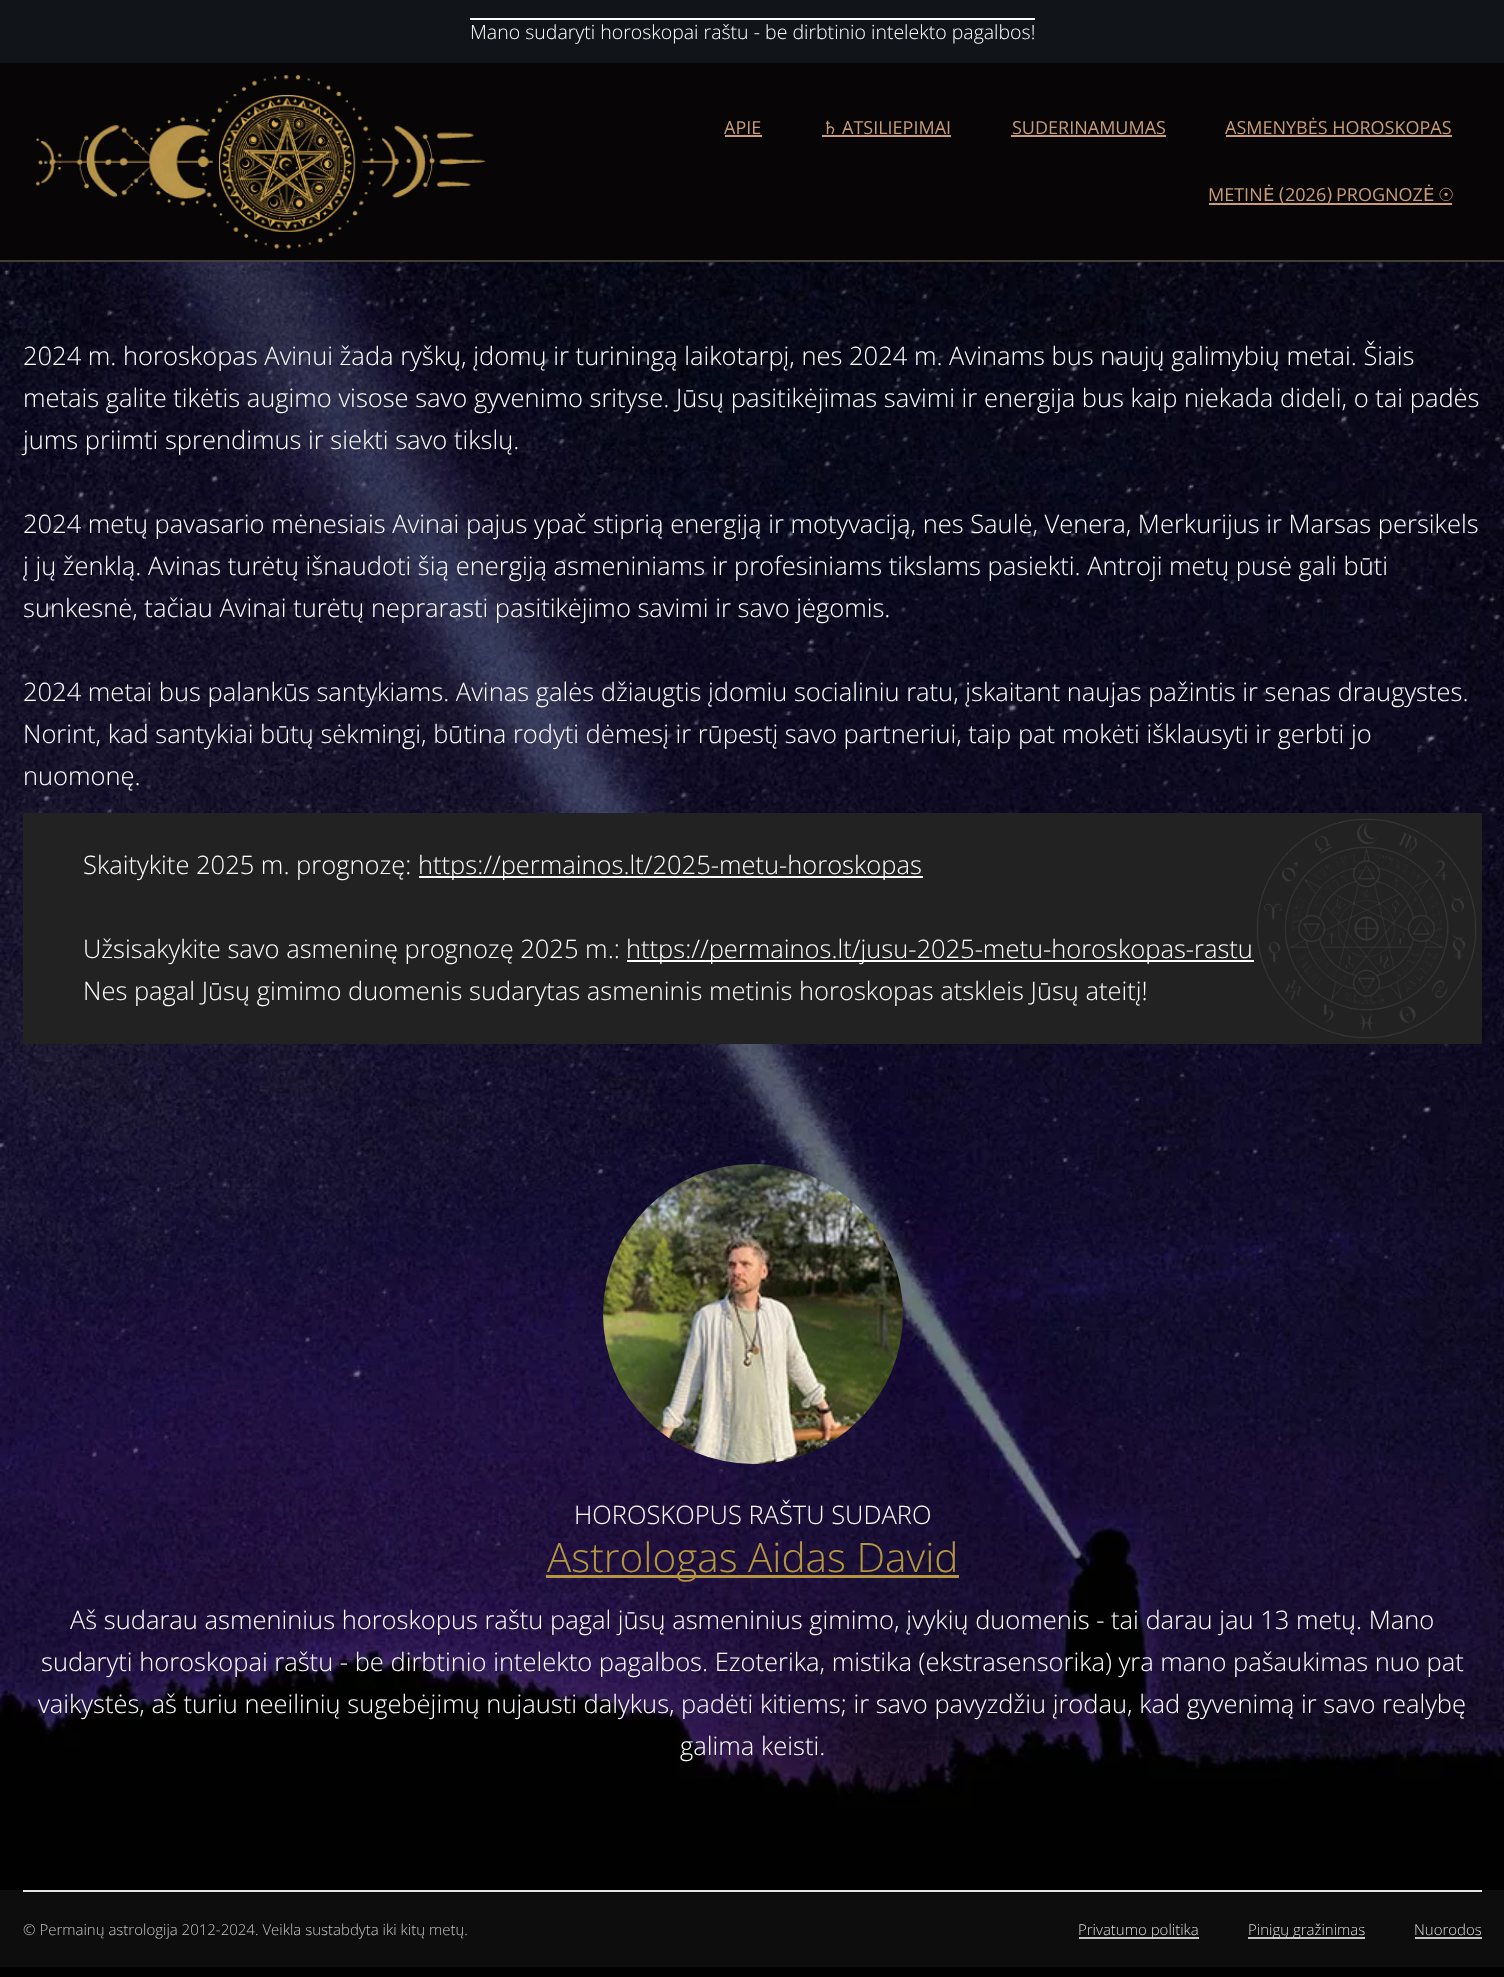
<?xml version="1.0" encoding="UTF-8"?>
<svg xmlns="http://www.w3.org/2000/svg" width="1504" height="1977">
    <rect width="100%" height="100%" fill="#FFFFFF"/>
    <image x="0" y="262" width="1504" height="1715" href="img_01.png"/>
    <rect x="0" y="0" width="1504" height="63" fill="#111519"/>
    <text x="470" y="39" font-family="Open Sans" font-size="19.5" font-weight="300" fill="#FFFFFF">Mano sudaryti horoskopai raštu - be dirbtinio intelekto pagalbos!</text>
    <rect x="470" y="18" width="565" height="2" fill="#FFFFFF"/>
    <rect x="0" y="63" width="1504" height="197" fill="#070506"/>
    <rect x="0" y="260" width="1504" height="2" fill="#433E37"/>
    <image x="36" y="75" width="450" height="174" href="img_02.png"/>
    <text x="724" y="134" font-family="Open Sans" font-size="18" fill="#CA9D75">APIE</text>
    <rect x="725" y="135" width="37" height="2" fill="#CA9D75"/>
    <text x="822" y="134" font-family="DejaVu Sans" font-size="18" fill="#CA9D75">♄</text>
    <text x="842" y="134" font-family="Open Sans" font-size="18" fill="#CA9D75">ATSILIEPIMAI</text>
    <rect x="822" y="135" width="129" height="2" fill="#CA9D75"/>
    <text x="1012" y="134" font-family="Open Sans" font-size="18" fill="#CA9D75">SUDERINAMUMAS</text>
    <rect x="1011" y="135" width="155" height="2" fill="#CA9D75"/>
    <text x="1225" y="134" font-family="Open Sans" font-size="18" fill="#CA9D75">ASMENYBĖS HOROSKOPAS</text>
    <rect x="1226" y="135" width="226" height="2" fill="#CA9D75"/>
    <text x="1208" y="201" font-family="Open Sans" font-size="18" fill="#CA9D75">METIN</text>
    <rect x="1209" y="203" width="243" height="2" fill="#CA9D75"/>
    <text x="1263" y="201" word-spacing="-2" font-family="DejaVu Sans" font-size="18" fill="#CA9D75">Ė (</text>
    <text x="1285" y="201" font-family="Open Sans" font-size="18" fill="#CA9D75">2026</text>
    <text x="1326" y="201" font-family="DejaVu Sans" font-size="18" fill="#CA9D75">)</text>
    <text x="1336" y="201" font-family="Open Sans" font-size="18" fill="#CA9D75">PROGNOZ</text>
    <text x="1423" y="201" word-spacing="-2" font-family="DejaVu Sans" font-size="18" fill="#CA9D75">Ė ☉</text>
    <text font-family="Open Sans" font-size="25.5" font-weight="300" fill="#FFFFFF">
        <tspan x="23" y="365">2024 m. horoskopas Avinui žada ryškų, įdomų ir turiningą laikotarpį, nes 2024 m. Avinams bus naujų galimybių metai. Šiais</tspan>
        <tspan x="23" y="407">metais galite tikėtis augimo visose savo gyvenimo srityse. Jūsų pasitikėjimas savimi ir energija bus kaip niekada dideli, o tai padės</tspan>
        <tspan x="23" y="449">jums priimti sprendimus ir siekti savo tikslų.</tspan>
    </text>
    <text font-family="Open Sans" font-size="25.5" font-weight="300" fill="#FFFFFF">
        <tspan x="23" y="533">2024 metų pavasario mėnesiais Avinai pajus ypač stiprią energiją ir motyvaciją, nes Saulė, Venera, Merkurijus ir Marsas persikels</tspan>
        <tspan x="23" y="575">į jų ženklą. Avinas turėtų išnaudoti šią energiją asmeniniams ir profesiniams tikslams pasiekti. Antroji metų pusė gali būti</tspan>
        <tspan x="23" y="617">sunkesnė, tačiau Avinai turėtų neprarasti pasitikėjimo savimi ir savo jėgomis.</tspan>
    </text>
    <text font-family="Open Sans" font-size="25.5" font-weight="300" fill="#FFFFFF">
        <tspan x="23" y="701">2024 metai bus palankūs santykiams. Avinas galės džiaugtis įdomiu socialiniu ratu, įskaitant naujas pažintis ir senas draugystes.</tspan>
        <tspan x="23" y="743">Norint, kad santykiai būtų sėkmingi, būtina rodyti dėmesį ir rūpestį savo partneriui, taip pat mokėti išklausyti ir gerbti jo</tspan>
        <tspan x="23" y="785">nuomonę.</tspan>
    </text>
    <rect x="23" y="813" width="1459" height="231" fill="#222222"/>
    <image x="1256" y="818" width="221" height="221" href="img_03.png"/>
    <text x="83" y="874" font-family="Open Sans" font-size="25.5" font-weight="300" fill="#FFFFFF">Skaitykite 2025 m. prognozę:</text>
    <rect x="419" y="876" width="504" height="2" fill="#FFFFFF"/>
    <text x="418" y="874" font-family="Open Sans" font-size="25.5" font-weight="300" fill="#FFFFFF">https://permainos.lt/2025-metu-horoskopas</text>
    <text x="83" y="958" font-family="Open Sans" font-size="25.5" font-weight="300" fill="#FFFFFF">Užsisakykite savo asmeninę prognozę 2025 m.:</text>
    <rect x="627" y="960" width="627" height="2" fill="#FFFFFF"/>
    <text x="626" y="958" font-family="Open Sans" font-size="25.5" font-weight="300" fill="#FFFFFF">https://permainos.lt/jusu-2025-metu-horoskopas-rastu</text>
    <text x="83" y="1000" font-family="Open Sans" font-size="25.5" font-weight="300" fill="#FFFFFF">Nes pagal Jūsų gimimo duomenis sudarytas asmeninis metinis horoskopas atskleis Jūsų ateitį!</text>
    <image x="603" y="1164" width="300" height="300" href="img_04.png"/>
    <text x="574" y="1524" font-family="Open Sans" font-size="25.5" font-weight="300" fill="#FFFFFF">HOROSKOPUS RAŠTU SUDARO</text>
    <rect x="546" y="1575" width="413" height="3" fill="#B59740"/>
    <text x="547" y="1572" font-family="Open Sans" font-size="40.5" font-weight="300" fill="#B59740">Astrologas Aidas David</text>
    <text x="70" y="1629" font-family="Open Sans" font-size="25.5" font-weight="300" fill="#FFFFFF">Aš sudarau asmeninius horoskopus raštu pagal jūsų asmeninius gimimo, įvykių duomenis - tai darau jau 13 metų. Mano</text>
    <text x="41" y="1671" font-family="Open Sans" font-size="25.5" font-weight="300" fill="#FFFFFF">sudaryti horoskopai raštu - be dirbtinio intelekto pagalbos. Ezoterika, mistika (ekstrasensorika) yra mano pašaukimas nuo pat</text>
    <text x="38" y="1713" font-family="Open Sans" font-size="25.5" font-weight="300" fill="#FFFFFF">vaikystės, aš turiu neeilinių sugebėjimų nujausti dalykus, padėti kitiems; ir savo pavyzdžiu įrodau, kad gyvenimą ir savo realybę</text>
    <text x="680" y="1755" font-family="Open Sans" font-size="25.5" font-weight="300" fill="#FFFFFF">galima keisti.</text>
    <rect x="0" y="1890" width="1504" height="77" fill="#0D0D0D"/>
    <rect x="23" y="1890" width="1459" height="2" fill="#E3E3E3"/>
    <text x="23" y="1935" font-family="Open Sans" font-size="15" font-weight="300" fill="#C5C5C5">© Permainų astrologija 2012-2024. Veikla sustabdyta iki kitų metų.</text>
    <rect x="1079" y="1937" width="120" height="2" fill="#C5C5C5"/>
    <text x="1078" y="1935" font-family="Open Sans" font-size="15" font-weight="300" fill="#DCDCDC">Privatumo politika</text>
    <rect x="1248" y="1937" width="117" height="2" fill="#C5C5C5"/>
    <text x="1248" y="1935" font-family="Open Sans" font-size="15" font-weight="300" fill="#DCDCDC">Pinigų gražinimas</text>
    <text x="1414" y="1935" font-family="Open Sans" font-size="15" font-weight="300" fill="#DCDCDC">Nuorodos</text>
    <rect x="1415" y="1937" width="67" height="2" fill="#C5C5C5"/>
</svg>
